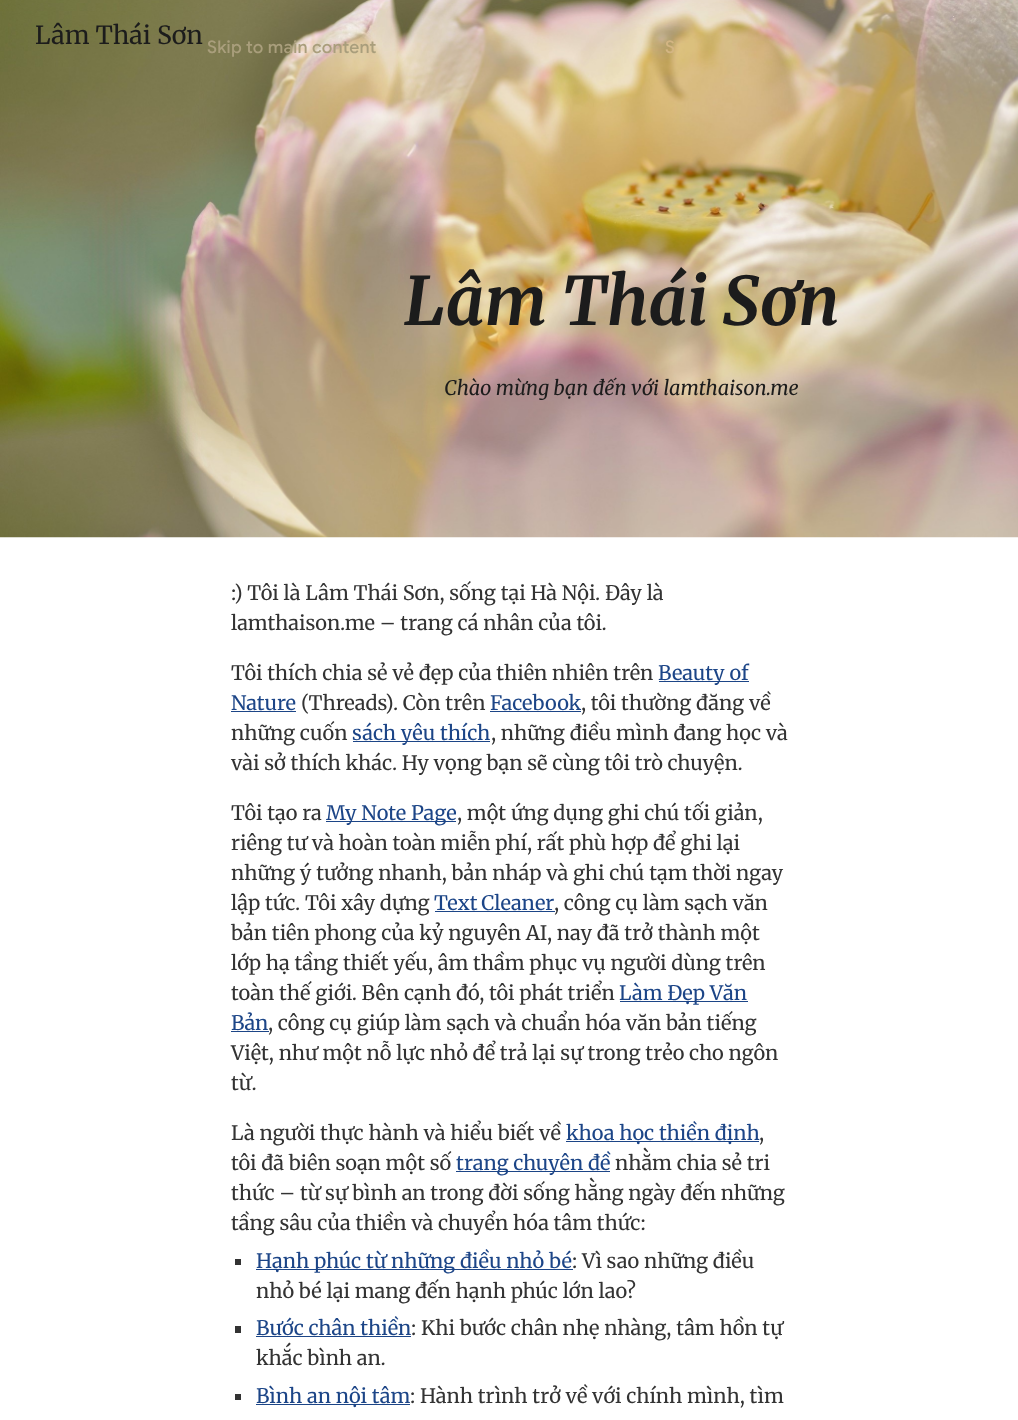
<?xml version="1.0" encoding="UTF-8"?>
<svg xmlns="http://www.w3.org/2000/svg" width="1018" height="1420">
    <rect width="100%" height="100%" fill="#FFFFFF"/>
    <image x="0" y="0" width="1018" height="538" href="img_01.png"/>
    <text x="35" y="44" font-family="Merriweather" font-size="25" fill="#1C1C1C">Lâm Thái Sơn</text>
    <text x="404" y="325" font-family="Merriweather" font-size="66.75" font-weight="700" font-style="italic" fill="#1C1C1C">Lâm Thái Sơn</text>
    <text x="444" y="395" font-family="Merriweather" font-size="20" font-style="italic" fill="#1C1C1C">Chào mừng bạn đến với lamthaison.me</text>
    <text font-family="Merriweather" font-size="20" fill="#333333">
        <tspan x="231" y="600">:) Tôi là Lâm Thái Sơn, sống tại Hà Nội. Đây là</tspan>
        <tspan x="231" y="630">lamthaison.me – trang cá nhân của tôi.</tspan>
    </text>
    <text x="231" y="680" font-family="Merriweather" font-size="20" fill="#333333">Tôi thích chia sẻ vẻ đẹp của thiên nhiên trên</text>
    <rect x="659" y="681" width="90" height="1" fill="#1C4587"/>
    <text x="658" y="680" font-family="Merriweather" font-size="20" fill="#1C4587">Beauty of</text>
    <text x="231" y="710" font-family="Merriweather" font-size="20" fill="#1C4587">Nature</text>
    <rect x="231" y="711" width="65" height="1" fill="#1C4587"/>
    <text x="301" y="710" font-family="Merriweather" font-size="20" fill="#333333">(Threads). Còn trên</text>
    <text x="490" y="710" font-family="Merriweather" font-size="20" fill="#1C4587">Facebook</text>
    <rect x="490" y="711" width="91" height="1" fill="#1C4587"/>
    <text x="581" y="710" font-family="Merriweather" font-size="20" fill="#333333">, tôi thường đăng về</text>
    <text x="231" y="740" font-family="Merriweather" font-size="20" fill="#333333">những cuốn</text>
    <rect x="353" y="741" width="137" height="1" fill="#1C4587"/>
    <text x="352" y="740" font-family="Merriweather" font-size="20" fill="#1C4587">sách yêu thích</text>
    <text x="491" y="740" font-family="Merriweather" font-size="20" fill="#333333">, những điều mình đang học và</text>
    <text x="231" y="770" font-family="Merriweather" font-size="20" fill="#333333">vài sở thích khác. Hy vọng bạn sẽ cùng tôi trò chuyện.</text>
    <text x="231" y="820" font-family="Merriweather" font-size="20" fill="#333333">Tôi tạo ra</text>
    <rect x="326" y="821" width="130" height="1" fill="#1C4587"/>
    <text x="326" y="820" font-family="Merriweather" font-size="20" fill="#1C4587">My Note Page</text>
    <text x="457" y="820" font-family="Merriweather" font-size="20" fill="#333333">, một ứng dụng ghi chú tối giản,</text>
    <text font-family="Merriweather" font-size="20" fill="#333333">
        <tspan x="231" y="850">riêng tư và hoàn toàn miễn phí, rất phù hợp để ghi lại</tspan>
        <tspan x="231" y="880">những ý tưởng nhanh, bản nháp và ghi chú tạm thời ngay</tspan>
        <tspan x="231" y="910">lập tức. Tôi xây dựng</tspan>
    </text>
    <text x="434" y="910" word-spacing="-1" font-family="Merriweather" font-size="20" fill="#1C4587">Text Cleaner</text>
    <rect x="435" y="911" width="120" height="1" fill="#1C4587"/>
    <text x="554" y="910" font-family="Merriweather" font-size="20" fill="#333333">, công cụ làm sạch văn</text>
    <text font-family="Merriweather" font-size="20" fill="#333333">
        <tspan x="231" y="940">bản tiên phong của kỷ nguyên AI, nay đã trở thành một</tspan>
        <tspan x="231" y="970">lớp hạ tầng thiết yếu, âm thầm phục vụ người dùng trên</tspan>
        <tspan x="231" y="1000">toàn thế giới. Bên cạnh đó, tôi phát triển</tspan>
    </text>
    <rect x="620" y="1001" width="128" height="1" fill="#1C4587"/>
    <text x="619" y="1000" font-family="Merriweather" font-size="20" fill="#1C4587">Làm Đẹp Văn</text>
    <text x="231" y="1030" font-family="Merriweather" font-size="20" fill="#1C4587">Bản</text>
    <rect x="231" y="1031" width="38" height="1" fill="#1C4587"/>
    <text x="268" y="1030" font-family="Merriweather" font-size="20" fill="#333333">, công cụ giúp làm sạch và chuẩn hóa văn bản tiếng</text>
    <text font-family="Merriweather" font-size="20" fill="#333333">
        <tspan x="231" y="1060">Việt, như một nỗ lực nhỏ để trả lại sự trong trẻo cho ngôn</tspan>
        <tspan x="231" y="1090">từ.</tspan>
    </text>
    <text x="231" y="1140" font-family="Merriweather" font-size="20" fill="#333333">Là người thực hành và hiểu biết về</text>
    <rect x="566" y="1141" width="193" height="1" fill="#1C4587"/>
    <text x="566" y="1140" font-family="Merriweather" font-size="20" fill="#1C4587">khoa học thiền định</text>
    <text x="759" y="1140" font-family="Merriweather" font-size="20" fill="#333333">,</text>
    <text x="231" y="1170" font-family="Merriweather" font-size="20" fill="#333333">tôi đã biên soạn một số</text>
    <rect x="456" y="1171" width="154" height="1" fill="#1C4587"/>
    <text x="456" y="1170" font-family="Merriweather" font-size="20" fill="#1C4587">trang chuyên đề</text>
    <text x="615" y="1170" font-family="Merriweather" font-size="20" fill="#333333">nhằm chia sẻ tri</text>
    <text font-family="Merriweather" font-size="20" fill="#333333">
        <tspan x="231" y="1200">thức – từ sự bình an trong đời sống hằng ngày đến những</tspan>
        <tspan x="231" y="1230">tầng sâu của thiền và chuyển hóa tâm thức:</tspan>
    </text>
    <rect x="235" y="1259" width="6" height="6" fill="#333333"/>
    <rect x="256" y="1269" width="317" height="1" fill="#1C4587"/>
    <text x="256" y="1268" font-family="Merriweather" font-size="20" fill="#1C4587">Hạnh phúc từ những điều nhỏ bé</text>
    <text x="572" y="1268" font-family="Merriweather" font-size="20" fill="#333333">: Vì sao những điều</text>
    <text x="256" y="1298" font-family="Merriweather" font-size="20" fill="#333333">nhỏ bé lại mang đến hạnh phúc lớn lao?</text>
    <rect x="235" y="1326" width="6" height="7" fill="#333333"/>
    <text x="256" y="1335" font-family="Merriweather" font-size="20" fill="#1C4587">Bước chân thiền</text>
    <rect x="256" y="1336" width="155" height="1" fill="#1C4587"/>
    <text x="411" y="1335" font-family="Merriweather" font-size="20" fill="#333333">: Khi bước chân nhẹ nhàng, tâm hồn tự</text>
    <text x="256" y="1365" font-family="Merriweather" font-size="20" fill="#333333">khắc bình an.</text>
    <rect x="235" y="1394" width="6" height="6" fill="#333333"/>
    <rect x="256" y="1404" width="154" height="1" fill="#1C4587"/>
    <text x="256" y="1403" font-family="Merriweather" font-size="20" fill="#1C4587">Bình an nội tâm</text>
    <text x="410" y="1403" font-family="Merriweather" font-size="20" fill="#333333">: Hành trình trở về với chính mình, tìm</text>
    <text x="207" y="53" font-family="Google Sans" font-size="17.5" font-weight="500" letter-spacing="0.2" fill="#A99E7C">Skip to main content</text>
    <text x="665" y="53" font-family="Google Sans" font-size="17.5" font-weight="500" letter-spacing="0.2" fill="#D3B583">S</text>
</svg>
